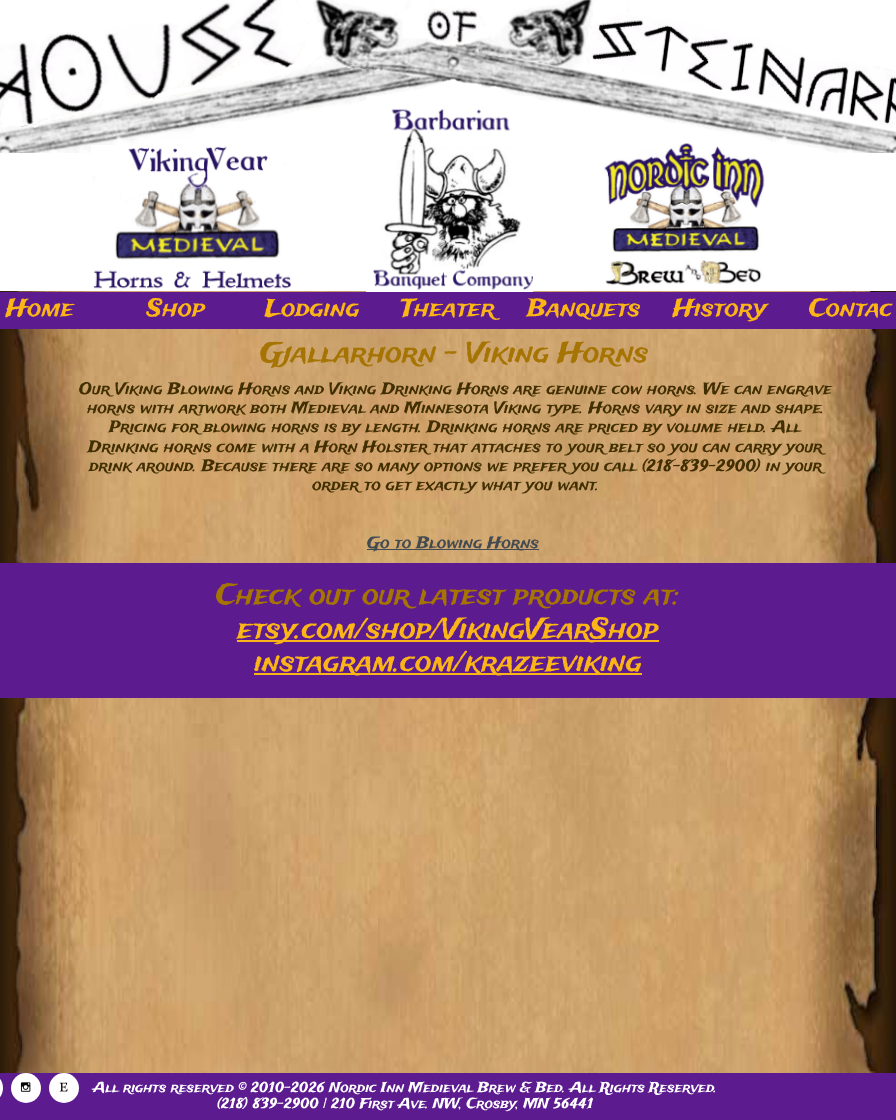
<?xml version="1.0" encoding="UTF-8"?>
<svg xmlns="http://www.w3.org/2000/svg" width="896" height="1120">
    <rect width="100%" height="100%" fill="#FFFFFF"/>
    <image x="0" y="0" width="896" height="1073" href="img_05.png"/>
    <image x="0" y="0" width="896" height="153" href="img_01.png"/>
    <rect x="0" y="153" width="896" height="138" fill="#FFFFFF"/>
    <image x="91" y="145" width="200" height="144" href="img_02.png"/>
    <image x="366" y="96" width="167" height="196" href="img_03.png"/>
    <image x="604" y="143" width="161" height="143" href="img_04.png"/>
    <rect x="0" y="292" width="896" height="37" fill="#5C1B8F"/>
    <text x="6" y="316" font-family="Trade Winds" font-size="24" fill="#FBB516">Home</text>
    <text x="147" y="316" font-family="Trade Winds" font-size="24" fill="#FBB516">Shop</text>
    <text x="265" y="316" font-family="Trade Winds" font-size="24" fill="#FBB516">Lodging</text>
    <text x="401" y="316" font-family="Trade Winds" font-size="24" fill="#FBB516">Theater</text>
    <text x="527" y="316" font-family="Trade Winds" font-size="24" fill="#FBB516">Banquets</text>
    <text x="673" y="316" font-family="Trade Winds" font-size="24" fill="#FBB516">History</text>
    <text x="809" y="316" font-family="Trade Winds" font-size="24" fill="#FBB516">Contac</text>
    <text x="260" y="362" font-family="Trade Winds" font-size="28" fill="#A57403">Gjallarhorn - Viking Horns</text>
    <text x="79" y="394" font-family="Trade Winds" font-size="16" fill="#412E01">Our Viking Blowing Horns and Viking Drinking Horns are genuine cow horns. We can engrave</text>
    <text x="87" y="413" font-family="Trade Winds" font-size="16" fill="#412E01">horns with artwork both Medieval and Minnesota Viking type. Horns vary in size and shape.</text>
    <text x="109" y="432" font-family="Trade Winds" font-size="16" fill="#412E01">Pricing for blowing horns is by length. Drinking horns are priced by volume held. All</text>
    <text x="88" y="452" font-family="Trade Winds" font-size="16" fill="#412E01">Drinking horns come with a Horn Holster that attaches to your belt so you can carry your</text>
    <text x="89" y="471" font-family="Trade Winds" font-size="16" fill="#412E01">drink around. Because there are so many options we prefer you call (218-839-2900) in your</text>
    <text x="312" y="490" font-family="Trade Winds" font-size="16" fill="#412E01">order to get exactly what you want.</text>
    <rect x="367" y="549" width="172" height="1" fill="#434A51"/>
    <text x="367" y="548" font-family="Trade Winds" font-size="16" fill="#434A51">Go to Blowing Horns</text>
    <rect x="0" y="563" width="896" height="135" fill="#5C1B8F"/>
    <text x="216" y="604" font-family="Trade Winds" font-size="28" fill="#A57403">Check out our latest products at:</text>
    <rect x="237" y="640" width="422" height="2" fill="#FBB516"/>
    <text x="237" y="638" font-family="Trade Winds" font-size="28" fill="#FBB516">etsy.com/shop/VikingVearShop</text>
    <rect x="254" y="673" width="388" height="2" fill="#FBB516"/>
    <text x="254" y="671" font-family="Trade Winds" font-size="28" fill="#FBB516">instagram.com/krazeeviking</text>
    <rect x="0" y="1073" width="896" height="47" fill="#5C1B8F"/>
    <path d="M 0 1073 H -12 C -3.5 1073 3 1079.5 3 1088 C 3 1096.5 -3.5 1103 -12 1103 H 0 Z" fill="#FFFFFF"/>
    <circle cx="26" cy="1088" r="15" fill="#FFFFFF"/>
    <image x="20" y="1082" width="11" height="10" href="img_06.png"/>
    <circle cx="64" cy="1088" r="15" fill="#FFFFFF"/>
    <image x="59" y="1082" width="9" height="10" href="img_07.png"/>
    <text x="93" y="1092" font-family="Trade Winds" font-size="14" fill="#FFFFFF">All rights reserved © 2010-2026 Nordic Inn Medieval Brew &amp; Bed. All Rights Reserved.</text>
    <text x="217" y="1108" font-family="Trade Winds" font-size="14" fill="#FFFFFF">(218) 839-2900 | 210 First Ave. NW, Crosby, MN 56441</text>
</svg>
